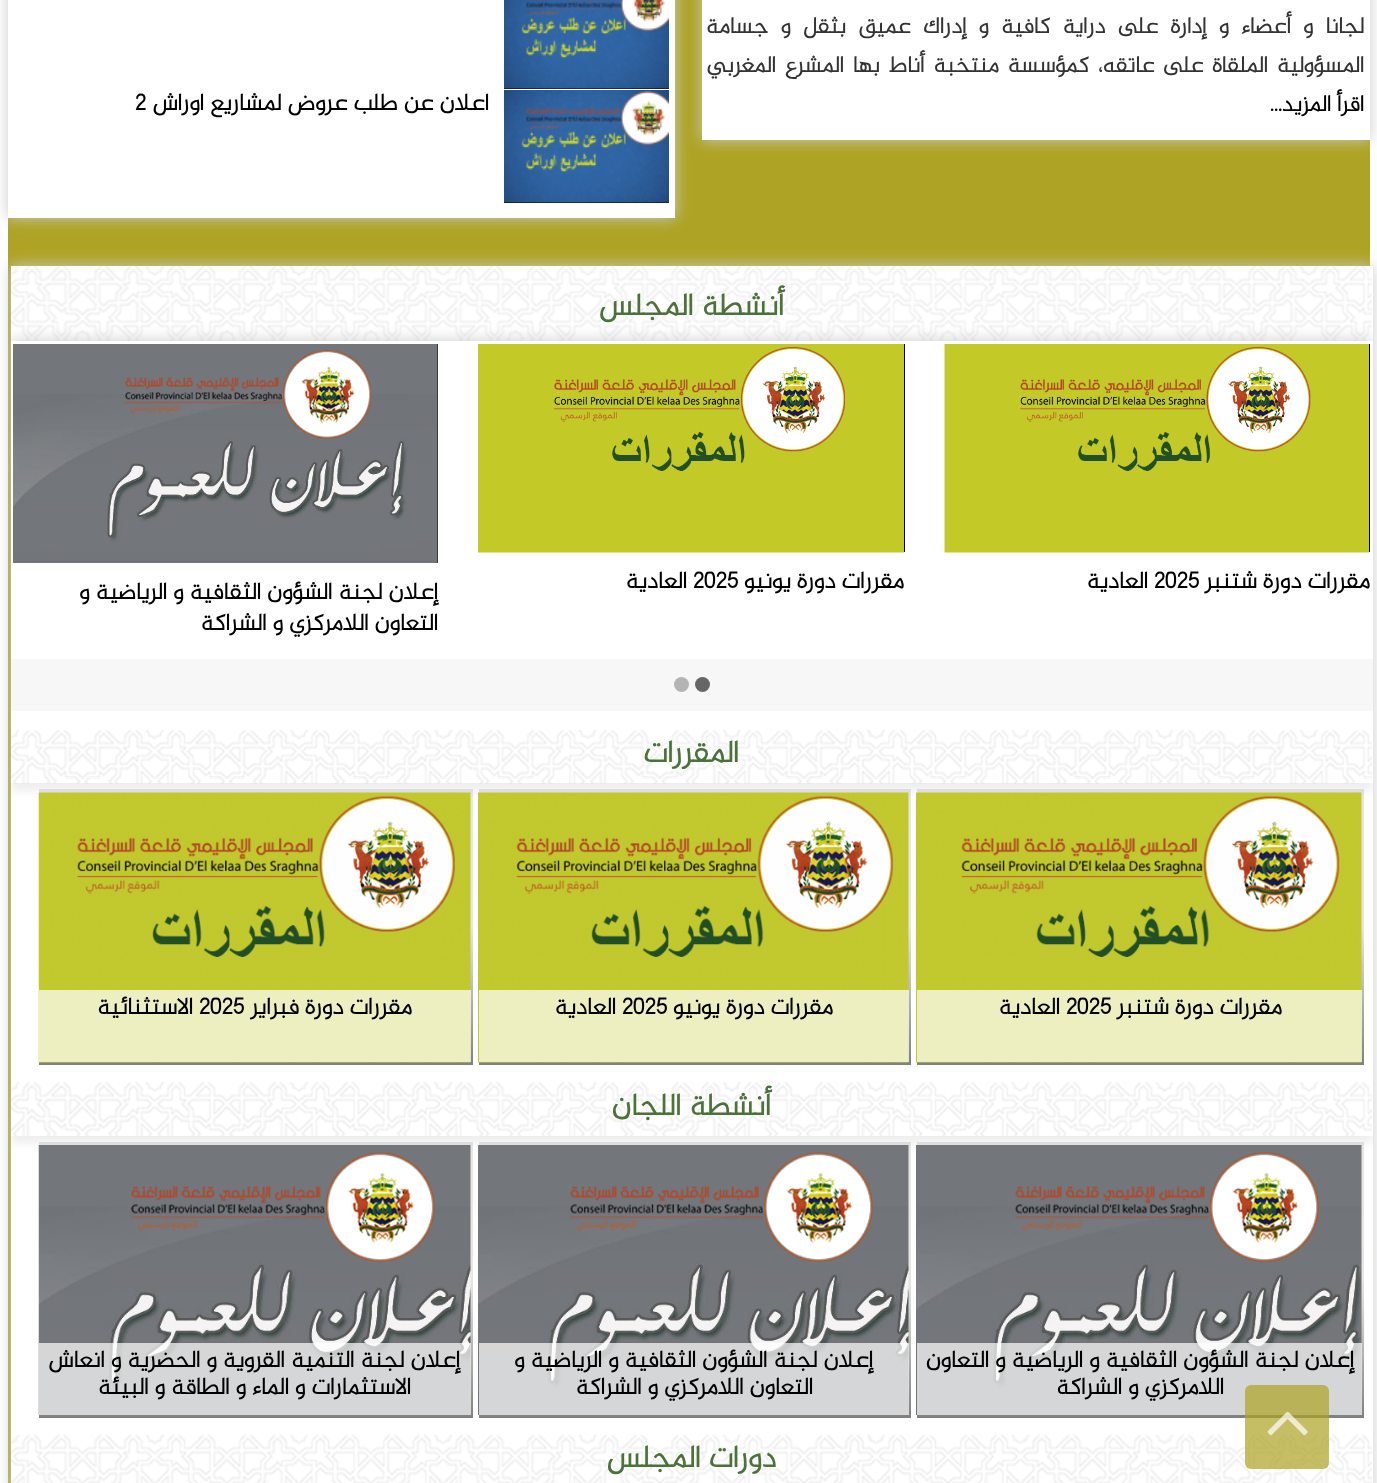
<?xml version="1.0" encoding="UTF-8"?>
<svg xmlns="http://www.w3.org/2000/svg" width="1377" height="1483">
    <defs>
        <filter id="blur1" x="-50%" y="-200%" width="200%" height="500%"><feGaussianBlur stdDeviation="7.5"/></filter>
        <clipPath id="clip1"><rect x="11" y="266" width="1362" height="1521"/></clipPath>
        <clipPath id="clip2"><path d="M 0 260 H 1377 V 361 H 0 Z M 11 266 H 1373 V 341 H 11 Z" clip-rule="evenodd"/></clipPath>
        <filter id="blur2" x="-50%" y="-200%" width="200%" height="500%"><feGaussianBlur stdDeviation="4"/></filter>
        <clipPath id="clip3"><path d="M 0 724 H 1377 V 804 H 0 Z M 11 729 H 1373 V 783 H 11 Z" clip-rule="evenodd"/></clipPath>
        <linearGradient id="g1" gradientUnits="userSpaceOnUse" x1="1140" y1="789" x2="1140" y2="1065"><stop offset="0.5" stop-color="#000000" stop-opacity="0.1"/><stop offset="0.7" stop-color="#000000" stop-opacity="0.25"/><stop offset="1" stop-color="#000000" stop-opacity="0.5"/></linearGradient>
        <linearGradient id="g2" gradientUnits="userSpaceOnUse" x1="695" y1="789" x2="695" y2="1065"><stop offset="0.5" stop-color="#000000" stop-opacity="0.1"/><stop offset="0.7" stop-color="#000000" stop-opacity="0.25"/><stop offset="1" stop-color="#000000" stop-opacity="0.5"/></linearGradient>
        <linearGradient id="g3" gradientUnits="userSpaceOnUse" x1="256" y1="789" x2="256" y2="1065"><stop offset="0.5" stop-color="#000000" stop-opacity="0.1"/><stop offset="0.7" stop-color="#000000" stop-opacity="0.25"/><stop offset="1" stop-color="#000000" stop-opacity="0.5"/></linearGradient>
        <clipPath id="clip4"><path d="M 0 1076 H 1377 V 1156 H 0 Z M 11 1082 H 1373 V 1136 H 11 Z" clip-rule="evenodd"/></clipPath>
        <linearGradient id="g4" gradientUnits="userSpaceOnUse" x1="1140" y1="1142" x2="1140" y2="1418"><stop offset="0.5" stop-color="#000000" stop-opacity="0.1"/><stop offset="0.7" stop-color="#000000" stop-opacity="0.25"/><stop offset="1" stop-color="#000000" stop-opacity="0.5"/></linearGradient>
        <linearGradient id="g5" gradientUnits="userSpaceOnUse" x1="695" y1="1142" x2="695" y2="1418"><stop offset="0.5" stop-color="#000000" stop-opacity="0.1"/><stop offset="0.7" stop-color="#000000" stop-opacity="0.25"/><stop offset="1" stop-color="#000000" stop-opacity="0.5"/></linearGradient>
        <linearGradient id="g6" gradientUnits="userSpaceOnUse" x1="256" y1="1142" x2="256" y2="1418"><stop offset="0.5" stop-color="#000000" stop-opacity="0.1"/><stop offset="0.7" stop-color="#000000" stop-opacity="0.25"/><stop offset="1" stop-color="#000000" stop-opacity="0.5"/></linearGradient>
    </defs>
    <rect width="100%" height="100%" fill="#FFFFFF"/>
    <rect x="8" y="0" width="1362" height="1483" fill="#AEA324"/>
    <rect x="702" y="-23" width="668" height="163" fill="#CACACA" filter="url(#blur1)"/>
    <rect x="702" y="0" width="668" height="140" fill="#FFFFFF"/>
    <text font-family="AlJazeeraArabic" font-size="23.1" font-weight="700" direction="rtl" fill="#333333">
        <tspan x="1364" y="33" word-spacing="6.6">لجانا و أعضاء و إدارة على دراية كافية و إدراك عميق بثقل و جسامة</tspan>
        <tspan x="1364" y="72" word-spacing="3">المسؤولية الملقاة على عاتقه، كمؤسسة منتخبة أناط بها المشرع المغربي</tspan>
    </text>
    <text x="1364" y="111" font-family="AlJazeeraArabic" font-size="23.1" font-weight="700" direction="rtl" fill="#000000">اقرأ المزيد…</text>
    <rect x="8" y="-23" width="667" height="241" fill="#CACACA" filter="url(#blur1)"/>
    <rect x="8" y="0" width="667" height="218" fill="#FFFFFF"/>
    <rect x="504" y="88" width="165" height="1" fill="#000000"/>
    <image x="504" y="0" width="165" height="89" href="img_01.png"/>
    <rect x="504" y="202" width="165" height="1" fill="#000000"/>
    <image x="504" y="90" width="165" height="113" href="img_02.png"/>
    <text x="489" y="110" font-family="AlJazeeraArabic" font-size="24" font-weight="700" direction="rtl" fill="#000000">اعلان عن طلب عروض لمشاريع اوراش</text>
    <text x="135" y="110" font-family="AlJazeeraArabic" font-size="24" font-weight="700" fill="#000000">2</text>
    <rect x="11" y="266" width="1362" height="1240" fill="#CACACA" filter="url(#blur1)"/>
    <rect x="11" y="266" width="1362" height="1217" fill="#FFFFFF"/>
    <g clip-path="url(#clip1)">
        <g clip-path="url(#clip2)">
            <rect x="11" y="273" width="1362" height="75" fill="#EEEEEE" filter="url(#blur2)"/>
        </g>
    </g>
    <image x="10" y="266" width="1362" height="75" href="img_03.png"/>
    <text x="784" y="315" font-family="AlJazeeraArabic" font-size="31.5" font-weight="700" direction="rtl" fill="#4A7239">أنشطة المجلس</text>
    <g clip-path="url(#clip1)">
        <rect x="11" y="341" width="1362" height="343" fill="#CACACA" filter="url(#blur1)"/>
    </g>
    <rect x="11" y="341" width="1362" height="318" fill="#FFFFFF"/>
    <rect x="1369" y="344" width="1" height="208" fill="#000000"/>
    <image x="944" y="344" width="425" height="209" href="img_04.png"/>
    <text x="1370" y="588" font-family="AlJazeeraArabic" font-size="24" font-weight="700" direction="rtl" fill="#000000">مقررات دورة شتنبر</text>
    <text x="1154" y="588" font-family="AlJazeeraArabic" font-size="24" font-weight="700" fill="#000000">2025</text>
    <text x="1148" y="588" font-family="AlJazeeraArabic" font-size="24" font-weight="700" direction="rtl" fill="#000000">العادية</text>
    <rect x="904" y="344" width="1" height="208" fill="#000000"/>
    <image x="478" y="344" width="426" height="209" href="img_05.png"/>
    <text x="904" y="588" font-family="AlJazeeraArabic" font-size="24" font-weight="700" direction="rtl" fill="#000000">مقررات دورة يونيو</text>
    <text x="693" y="588" font-family="AlJazeeraArabic" font-size="24" font-weight="700" fill="#000000">2025</text>
    <text x="687" y="588" font-family="AlJazeeraArabic" font-size="24" font-weight="700" direction="rtl" fill="#000000">العادية</text>
    <rect x="437" y="344" width="1" height="219" fill="#000000"/>
    <image x="13" y="344" width="425" height="219" href="img_06.png"/>
    <text font-family="AlJazeeraArabic" font-size="24" font-weight="700" direction="rtl" fill="#000000">
        <tspan x="438" y="599">إعلان لجنة الشؤون الثقافية و الرياضية و</tspan>
        <tspan x="438" y="630">التعاون اللامركزي و الشراكة</tspan>
    </text>
    <rect x="11" y="659" width="1362" height="52" fill="#F7F7F7"/>
    <circle cx="702.5" cy="684.5" r="7.5" fill="#666666"/>
    <circle cx="681.5" cy="684.5" r="7.5" fill="#B4B4B4"/>
    <g clip-path="url(#clip1)">
        <g clip-path="url(#clip3)">
            <rect x="11" y="737" width="1362" height="54" fill="#EEEEEE" filter="url(#blur2)"/>
        </g>
    </g>
    <image x="10" y="730" width="1362" height="54" href="img_07.png"/>
    <text x="739" y="762" font-family="AlJazeeraArabic" font-size="31.25" font-weight="700" direction="rtl" fill="#4A7239">المقررات</text>
    <rect x="917" y="789" width="447" height="276" fill="url(#g1)"/>
    <image x="916" y="792" width="446" height="271" href="img_08.png"/>
    <rect x="917" y="990" width="445" height="72" fill="#FFFFFF" fill-opacity="0.7"/>
    <text x="1282" y="1014" font-family="AlJazeeraArabic" font-size="24" font-weight="700" direction="rtl" fill="#000000">مقررات دورة شتنبر</text>
    <text x="1066" y="1014" font-family="AlJazeeraArabic" font-size="24" font-weight="700" fill="#000000">2025</text>
    <text x="1060" y="1014" font-family="AlJazeeraArabic" font-size="24" font-weight="700" direction="rtl" fill="#000000">العادية</text>
    <rect x="479" y="789" width="432" height="276" fill="url(#g2)"/>
    <image x="478" y="792" width="431" height="271" href="img_09.png"/>
    <rect x="479" y="990" width="430" height="72" fill="#FFFFFF" fill-opacity="0.7"/>
    <text x="833" y="1014" font-family="AlJazeeraArabic" font-size="24" font-weight="700" direction="rtl" fill="#000000">مقررات دورة يونيو</text>
    <text x="622" y="1014" font-family="AlJazeeraArabic" font-size="24" font-weight="700" fill="#000000">2025</text>
    <text x="616" y="1014" font-family="AlJazeeraArabic" font-size="24" font-weight="700" direction="rtl" fill="#000000">العادية</text>
    <rect x="39" y="789" width="434" height="276" fill="url(#g3)"/>
    <image x="38" y="792" width="433" height="271" href="img_10.png"/>
    <rect x="39" y="990" width="432" height="72" fill="#FFFFFF" fill-opacity="0.7"/>
    <text x="412" y="1014" font-family="AlJazeeraArabic" font-size="24" font-weight="700" direction="rtl" fill="#000000">مقررات دورة فبراير</text>
    <text x="199" y="1014" font-family="AlJazeeraArabic" font-size="24" font-weight="700" fill="#000000">2025</text>
    <text x="193" y="1014" font-family="AlJazeeraArabic" font-size="24" font-weight="700" direction="rtl" fill="#000000">الاستثنائية</text>
    <g clip-path="url(#clip1)">
        <g clip-path="url(#clip4)">
            <rect x="11" y="1089" width="1362" height="54" fill="#EEEEEE" filter="url(#blur2)"/>
        </g>
    </g>
    <image x="10" y="1082" width="1362" height="54" href="img_11.png"/>
    <text x="771" y="1115" font-family="AlJazeeraArabic" font-size="31.25" font-weight="700" direction="rtl" fill="#4A7239">أنشطة اللجان</text>
    <rect x="917" y="1142" width="447" height="276" fill="url(#g4)"/>
    <image x="916" y="1145" width="446" height="270" href="img_12.png"/>
    <rect x="917" y="1343" width="445" height="72" fill="#FFFFFF" fill-opacity="0.7"/>
    <text x="1354" y="1367" font-family="AlJazeeraArabic" font-size="24" font-weight="700" direction="rtl" fill="#000000">إعلان لجنة الشؤون الثقافية و الرياضية و التعاون</text>
    <text x="1224" y="1394" font-family="AlJazeeraArabic" font-size="24" font-weight="700" direction="rtl" fill="#000000">اللامركزي و الشراكة</text>
    <rect x="479" y="1142" width="432" height="276" fill="url(#g5)"/>
    <image x="478" y="1145" width="431" height="270" href="img_13.png"/>
    <rect x="479" y="1343" width="430" height="72" fill="#FFFFFF" fill-opacity="0.7"/>
    <text x="873" y="1367" font-family="AlJazeeraArabic" font-size="24" font-weight="700" direction="rtl" fill="#000000">إعلان لجنة الشؤون الثقافية و الرياضية و</text>
    <text x="813" y="1394" font-family="AlJazeeraArabic" font-size="24" font-weight="700" direction="rtl" fill="#000000">التعاون اللامركزي و الشراكة</text>
    <rect x="39" y="1142" width="434" height="276" fill="url(#g6)"/>
    <image x="38" y="1145" width="433" height="270" href="img_14.png"/>
    <rect x="39" y="1343" width="432" height="72" fill="#FFFFFF" fill-opacity="0.7"/>
    <text x="460" y="1367" font-family="AlJazeeraArabic" font-size="24" font-weight="700" direction="rtl" fill="#000000">إعلان لجنة التنمية القروية و الحضرية و انعاش</text>
    <text x="411" y="1394" font-family="AlJazeeraArabic" font-size="24" font-weight="700" direction="rtl" fill="#000000">الاستثمارات و الماء و الطاقة و البيئة</text>
    <image x="10" y="1434" width="1362" height="49" href="img_15.png"/>
    <text x="776" y="1467" font-family="AlJazeeraArabic" font-size="31.25" font-weight="700" direction="rtl" fill="#4A7239">دورات المجلس</text>
    <rect x="1245" y="1385" width="84" height="84" rx="6" fill="#AEA324" fill-opacity="0.7"/>
    <image x="1267" y="1411" width="41" height="25" href="img_16.png"/>
</svg>
